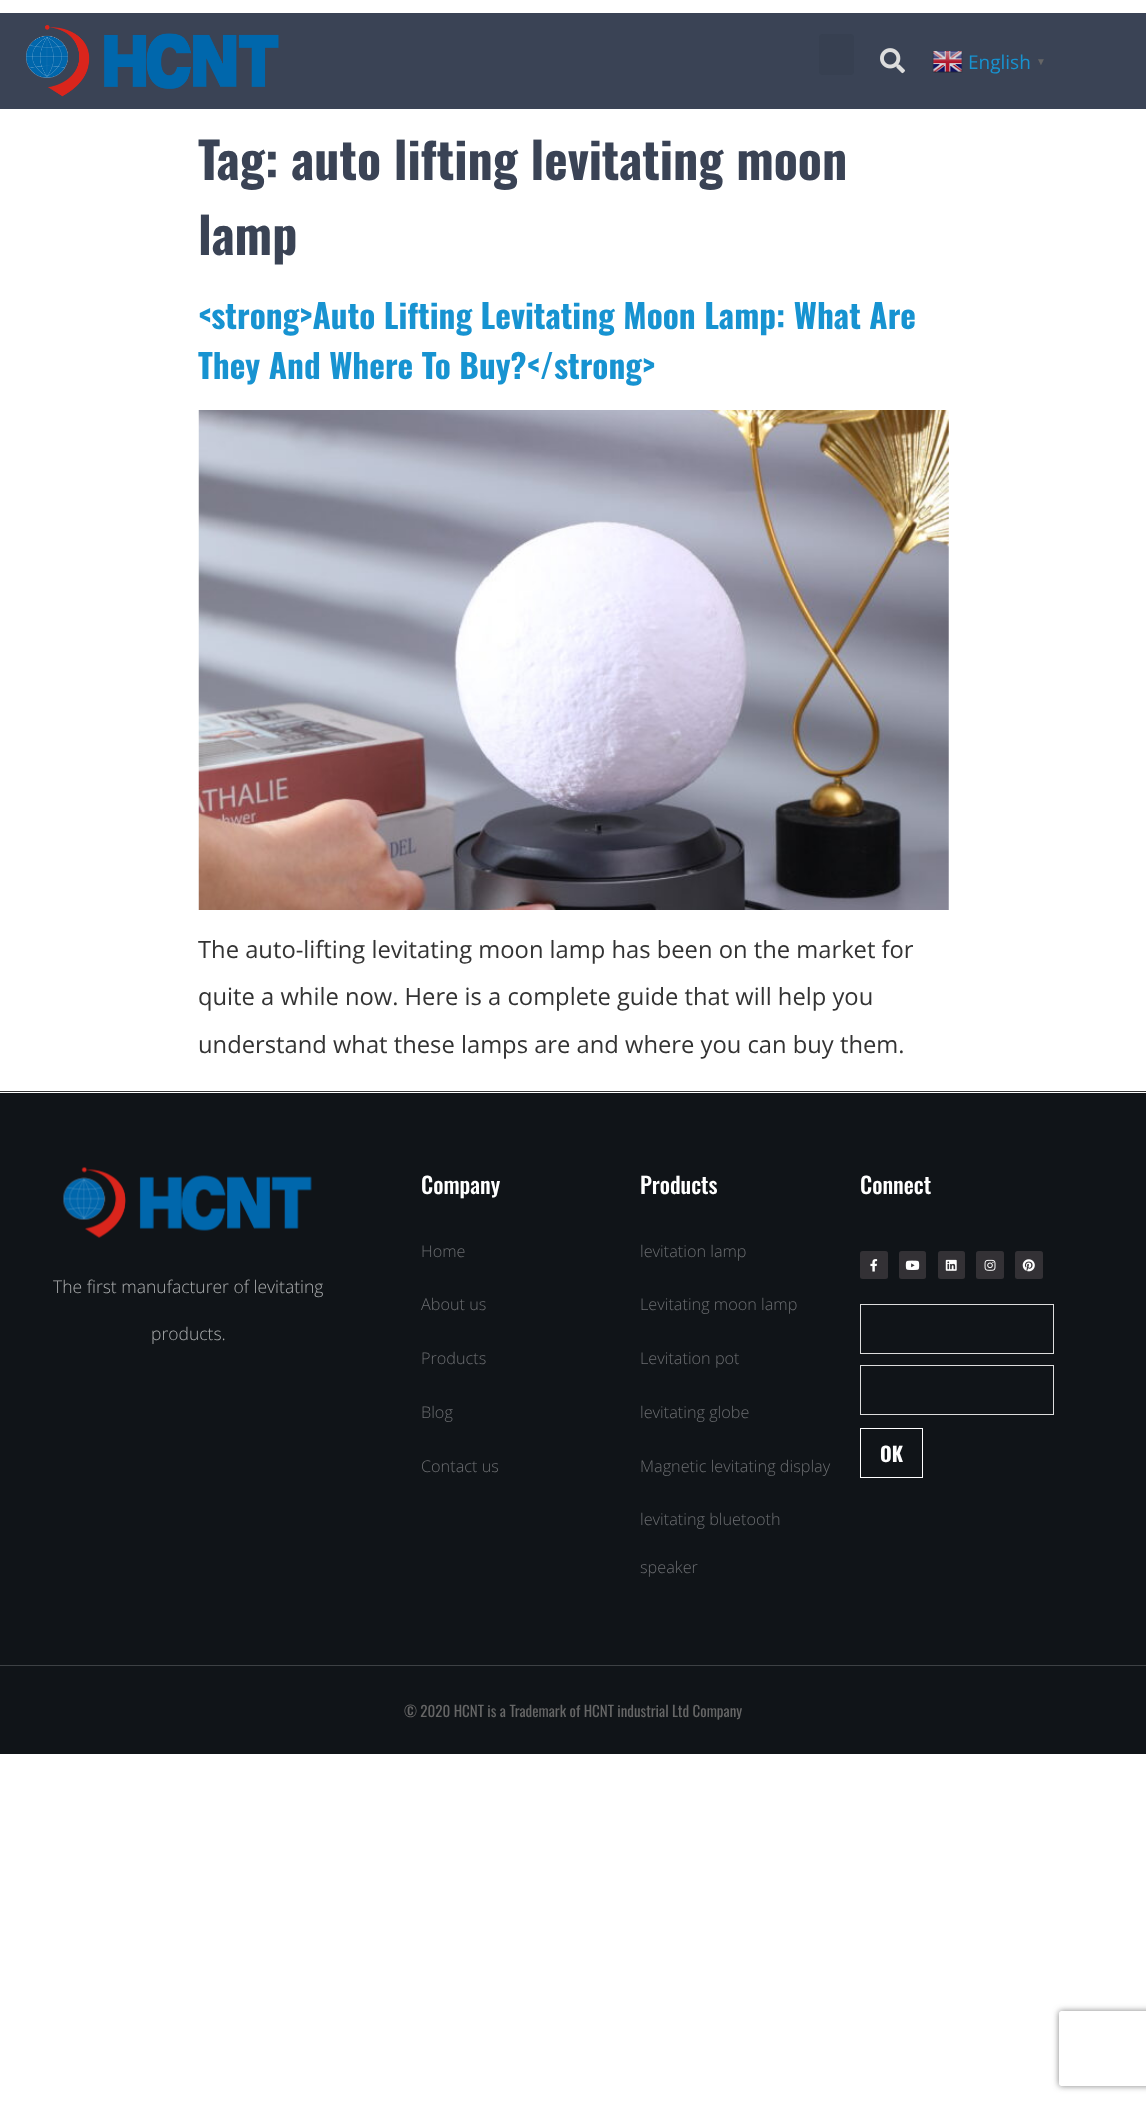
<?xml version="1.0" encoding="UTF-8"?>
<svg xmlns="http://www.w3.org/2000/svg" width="1146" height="2103">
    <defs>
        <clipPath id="clip1"><path d="M 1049 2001 H 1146 V 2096 H 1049 Z M 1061.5 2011 H 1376.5 C 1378 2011 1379 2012 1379 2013.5 V 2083.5 C 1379 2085 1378 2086 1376.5 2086 H 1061.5 C 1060 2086 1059 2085 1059 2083.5 V 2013.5 C 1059 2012 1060 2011 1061.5 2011 Z" clip-rule="evenodd"/></clipPath>
        <filter id="blur1" x="-50%" y="-200%" width="200%" height="500%"><feGaussianBlur stdDeviation="3"/></filter>
    </defs>
    <rect width="100%" height="100%" fill="#FFFFFF"/>
    <rect x="0" y="13" width="1146" height="96" fill="#3A4355"/>
    <image x="26" y="25" width="253" height="72" href="img_01.png"/>
    <rect x="819" y="34" width="35" height="41" rx="4" fill="#374051"/>
    <image x="880" y="48" width="25" height="26" href="img_02.png"/>
    <image x="932" y="51" width="31" height="22" href="img_03.png"/>
    <text x="968" y="69" font-family="Open Sans" font-size="19" fill="#1793D1">English</text>
    <text x="1036" y="65" font-family="Liberation Sans" font-size="10" font-weight="700" fill="#666666">▼</text>
    <text font-family="Oswald" font-size="49.9" font-weight="700" fill="#3A4355">
        <tspan x="198" y="180">Tag: auto lifting levitating moon</tspan>
        <tspan x="198" y="255">lamp</tspan>
    </text>
    <text font-family="Oswald" font-size="33.25" font-weight="700" fill="#1793D1">
        <tspan x="198" y="329">&lt;strong&gt;Auto Lifting Levitating Moon Lamp: What Are</tspan>
        <tspan x="198" y="379">They And Where To Buy?&lt;/strong&gt;</tspan>
    </text>
    <image x="198" y="410" width="751" height="500" href="img_04.png"/>
    <text font-family="Open Sans" font-size="23.75" fill="#333333">
        <tspan x="198" y="958">The auto-lifting levitating moon lamp has been on the market for</tspan>
        <tspan x="198" y="1005">quite a while now. Here is a complete guide that will help you</tspan>
    </text>
    <text x="198" y="1053" font-family="Open Sans" font-size="23.75" fill="#333333">understand what these lamps are and where you can buy them.</text>
    <rect x="0" y="1093" width="1146" height="572" fill="#101418"/>
    <rect x="0" y="1091" width="1146" height="1" fill="#333333"/>
    <image x="63" y="1167" width="249" height="71" href="img_05.png"/>
    <text x="53" y="1293" font-family="Open Sans" font-size="17.5" font-weight="300" fill="#ABADAE">The first manufacturer of levitating</text>
    <text x="151" y="1340" font-family="Open Sans" font-size="17.5" font-weight="300" fill="#ABADAE">products.</text>
    <text x="421" y="1194" font-family="Oswald" font-size="22.5" font-weight="500" fill="#FFFFFF">Company</text>
    <text x="421" y="1257" font-family="Open Sans" font-size="16.25" font-weight="300" fill="#6B6D70">Home</text>
    <text x="421" y="1310" font-family="Open Sans" font-size="16.25" font-weight="300" fill="#6B6D70">About us</text>
    <text x="421" y="1364" font-family="Open Sans" font-size="16.25" font-weight="300" fill="#6B6D70">Products</text>
    <text x="421" y="1418" font-family="Open Sans" font-size="16.25" font-weight="300" fill="#6B6D70">Blog</text>
    <text x="421" y="1472" font-family="Open Sans" font-size="16.25" font-weight="300" fill="#6B6D70">Contact us</text>
    <text x="640" y="1194" font-family="Oswald" font-size="22.5" font-weight="500" fill="#FFFFFF">Products</text>
    <text x="640" y="1257" font-family="Open Sans" font-size="16.25" font-weight="300" fill="#6B6D70">levitation lamp</text>
    <text x="640" y="1310" font-family="Open Sans" font-size="16.25" font-weight="300" fill="#6B6D70">Levitating moon lamp</text>
    <text x="640" y="1364" font-family="Open Sans" font-size="16.25" font-weight="300" fill="#6B6D70">Levitation pot</text>
    <text x="640" y="1418" font-family="Open Sans" font-size="16.25" font-weight="300" fill="#6B6D70">levitating globe</text>
    <text x="640" y="1472" font-family="Open Sans" font-size="16.25" font-weight="300" fill="#6B6D70">Magnetic levitating display</text>
    <text x="640" y="1525" font-family="Open Sans" font-size="16.25" font-weight="300" fill="#6B6D70">levitating bluetooth</text>
    <text x="640" y="1573" font-family="Open Sans" font-size="16.25" font-weight="300" fill="#6B6D70">speaker</text>
    <text x="860" y="1194" font-family="Oswald" font-size="22.5" font-weight="500" fill="#FFFFFF">Connect</text>
    <rect x="860" y="1251" width="28" height="28" rx="2.5" fill="#333135"/>
    <image x="870" y="1259" width="8" height="13" href="img_06.png"/>
    <rect x="899" y="1251" width="27" height="28" rx="2.5" fill="#333135"/>
    <image x="905" y="1260" width="15" height="10" href="img_07.png"/>
    <rect x="938" y="1251" width="27" height="28" rx="2.5" fill="#333135"/>
    <image x="945" y="1259" width="12" height="12" href="img_08.png"/>
    <rect x="976" y="1251" width="28" height="28" rx="2.5" fill="#333135"/>
    <image x="984" y="1259" width="12" height="12" href="img_09.png"/>
    <rect x="1015" y="1251" width="28" height="28" rx="2.5" fill="#333135"/>
    <image x="1022" y="1259" width="13" height="13" href="img_10.png"/>
    <rect x="860.5" y="1304.5" width="193" height="49" fill="none" stroke="#DDDDDD"/>
    <rect x="860.5" y="1365.5" width="193" height="49" fill="none" stroke="#DDDDDD"/>
    <rect x="860.5" y="1428.5" width="62" height="49" fill="none" stroke="#FFFFFF"/>
    <text x="880" y="1462" font-family="Oswald" font-size="20" font-weight="700" fill="#FFFFFF">OK</text>
    <g clip-path="url(#clip1)">
        <rect x="1059" y="2011" width="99" height="75" rx="2.5" fill="#808080" filter="url(#blur1)"/>
    </g>
    <rect x="0" y="1666" width="1146" height="88" fill="#101418"/>
    <rect x="0" y="1665" width="1146" height="1" fill="#3D4144"/>
    <text x="404" y="1717" font-family="Oswald" font-size="15" fill="#666666">© 2020 HCNT is a Trademark of HCNT industrial Ltd Company</text>
</svg>
